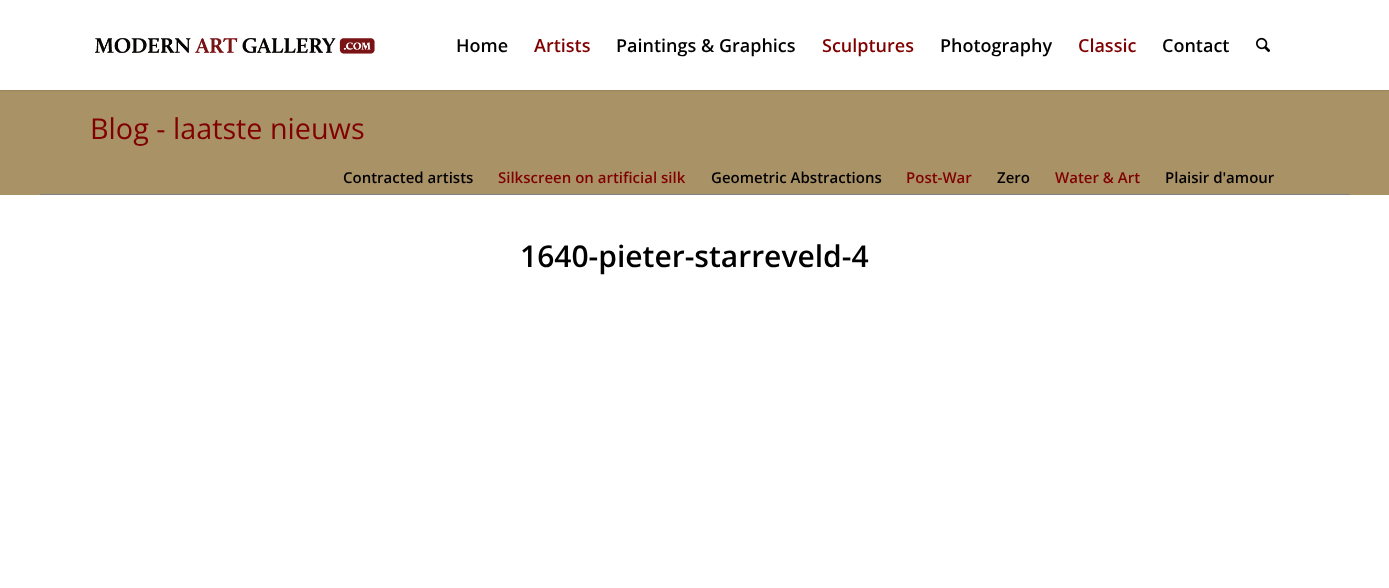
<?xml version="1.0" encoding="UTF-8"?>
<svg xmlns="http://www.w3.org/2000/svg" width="1389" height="588">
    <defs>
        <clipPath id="clip1"><rect x="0" y="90" width="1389" height="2"/></clipPath>
        <filter id="blur1" x="-50%" y="-200%" width="200%" height="500%"><feGaussianBlur stdDeviation="1"/></filter>
    </defs>
    <rect width="100%" height="100%" fill="#FFFFFF"/>
    <rect x="0" y="90" width="1389" height="105" fill="#AA9267"/>
    <g clip-path="url(#clip1)">
        <rect x="-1" y="-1" width="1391" height="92" fill="#000000" fill-opacity="0.1" filter="url(#blur1)"/>
    </g>
    <image x="94" y="38" width="281" height="16" href="img_01.png"/>
    <text x="456" y="52" font-family="Open Sans" font-size="18" font-weight="600" fill="#000000">Home</text>
    <text x="534" y="52" font-family="Open Sans" font-size="18" font-weight="600" fill="#800000">Artists</text>
    <text x="616" y="52" font-family="Open Sans" font-size="18" font-weight="600" fill="#000000">Paintings &amp; Graphics</text>
    <text x="822" y="52" font-family="Open Sans" font-size="18" font-weight="600" fill="#800000">Sculptures</text>
    <text x="940" y="52" font-family="Open Sans" font-size="18" font-weight="600" fill="#000000">Photography</text>
    <text x="1078" y="52" font-family="Open Sans" font-size="18" font-weight="600" fill="#800000">Classic</text>
    <text x="1162" y="52" font-family="Open Sans" font-size="18" font-weight="600" fill="#000000">Contact</text>
    <image x="1256" y="37" width="14" height="16" href="img_02.png"/>
    <text x="90" y="139" font-family="Open Sans" font-size="28.75" fill="#800000">Blog - laatste nieuws</text>
    <rect x="40" y="194" width="1310" height="1" fill="#808080"/>
    <text x="343" y="183" font-family="Open Sans" font-size="15" font-weight="600" fill="#000000">Contracted artists</text>
    <text x="498" y="183" font-family="Open Sans" font-size="15" font-weight="600" fill="#800000">Silkscreen on artificial silk</text>
    <text x="711" y="183" font-family="Open Sans" font-size="15" font-weight="600" fill="#000000">Geometric Abstractions</text>
    <text x="906" y="183" font-family="Open Sans" font-size="15" font-weight="600" fill="#800000">Post-War</text>
    <text x="997" y="183" font-family="Open Sans" font-size="15" font-weight="600" fill="#000000">Zero</text>
    <text x="1055" y="183" font-family="Open Sans" font-size="15" font-weight="600" fill="#800000">Water &amp; Art</text>
    <text x="1165" y="183" font-family="Open Sans" font-size="15" font-weight="600" fill="#000000">Plaisir d'amour</text>
    <text x="520" y="267" font-family="Open Sans" font-size="30" font-weight="600" fill="#000000">1640-pieter-starreveld-4</text>
</svg>
